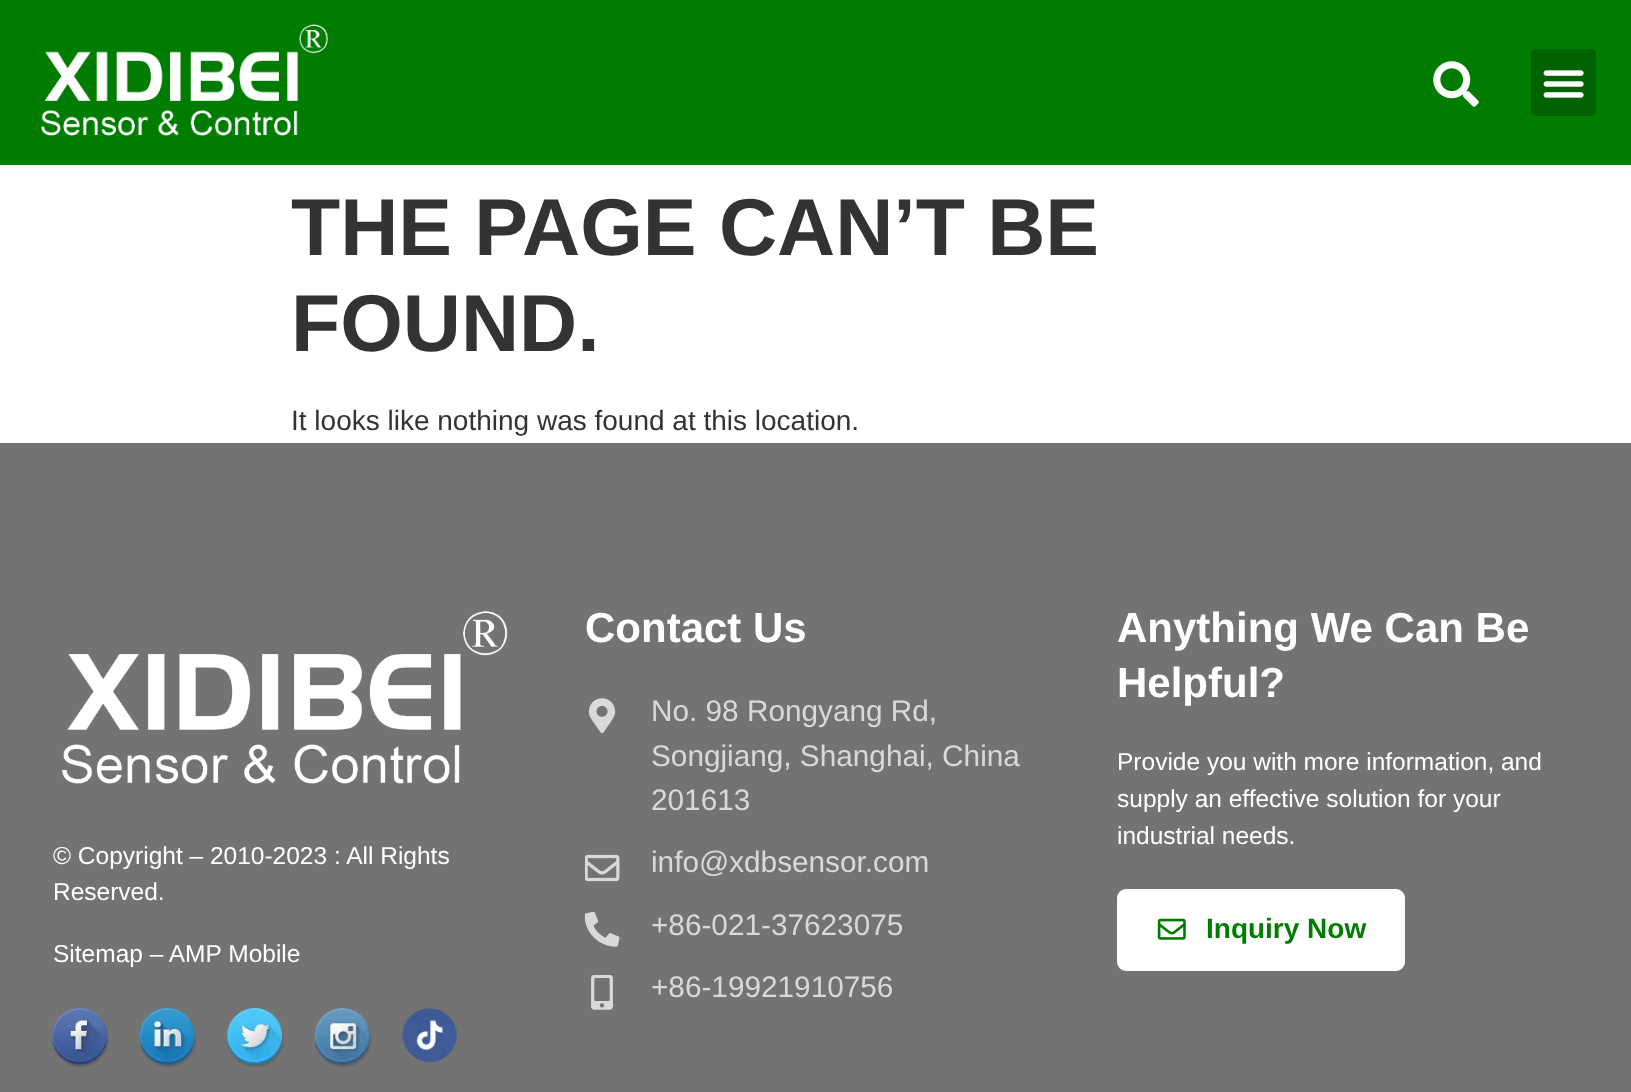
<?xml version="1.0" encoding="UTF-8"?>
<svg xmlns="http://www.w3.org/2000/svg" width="1631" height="1092">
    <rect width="100%" height="100%" fill="#FFFFFF"/>
    <rect x="0" y="0" width="1631" height="165" fill="#007C00"/>
    <image x="41" y="24" width="288" height="112" href="img_01.png"/>
    <image x="1433" y="61" width="46" height="46" href="img_02.png"/>
    <rect x="1531" y="49" width="65" height="67" rx="5" fill="#006200"/>
    <image x="1543" y="70" width="41" height="28" href="img_03.png"/>
    <text font-family="Liberation Sans" font-size="80.5" font-weight="700" fill="#333333">
        <tspan x="291" y="255">THE PAGE CAN’T BE</tspan>
        <tspan x="291" y="351">FOUND.</tspan>
    </text>
    <text x="291" y="430" font-family="Liberation Sans" font-size="28" fill="#333333">It looks like nothing was found at this location.</text>
    <rect x="0" y="443" width="1631" height="649" fill="#737373"/>
    <image x="61" y="611" width="447" height="173" href="img_04.png"/>
    <text font-family="Liberation Sans" font-size="24.5" fill="#FFFFFF">
        <tspan x="53" y="864">© Copyright – 2010-2023 : All Rights</tspan>
        <tspan x="53" y="900">Reserved.</tspan>
    </text>
    <text x="53" y="962" font-family="Liberation Sans" font-size="24.5" fill="#FFFFFF">Sitemap – AMP Mobile</text>
    <image x="52" y="1008" width="57" height="60" href="img_05.png"/>
    <image x="140" y="1008" width="57" height="60" href="img_06.png"/>
    <image x="227" y="1008" width="57" height="59" href="img_07.png"/>
    <image x="315" y="1008" width="57" height="60" href="img_08.png"/>
    <image x="402" y="1008" width="55" height="55" href="img_09.png"/>
    <text x="585" y="642" font-family="Liberation Sans" font-size="42" font-weight="700" fill="#FFFFFF">Contact Us</text>
    <image x="588" y="698" width="28" height="35" href="img_10.png"/>
    <text font-family="Liberation Sans" font-size="29.75" fill="#D9D9D9">
        <tspan x="651" y="721">No. 98 Rongyang Rd,</tspan>
        <tspan x="651" y="766">Songjiang, Shanghai, China</tspan>
        <tspan x="651" y="810">201613</tspan>
    </text>
    <image x="585" y="854" width="35" height="28" href="img_11.png"/>
    <text x="651" y="872" font-family="Liberation Sans" font-size="29.75" fill="#D9D9D9">info@xdbsensor.com</text>
    <image x="585" y="912" width="35" height="35" href="img_12.png"/>
    <text x="651" y="935" font-family="Liberation Sans" font-size="29.75" fill="#D9D9D9">+86-021-37623075</text>
    <image x="591" y="975" width="22" height="35" href="img_13.png"/>
    <text x="651" y="997" font-family="Liberation Sans" font-size="29.75" fill="#D9D9D9">+86-19921910756</text>
    <text font-family="Liberation Sans" font-size="42" font-weight="700" fill="#FFFFFF">
        <tspan x="1117" y="642">Anything We Can Be</tspan>
        <tspan x="1117" y="697">Helpful?</tspan>
    </text>
    <text font-family="Liberation Sans" font-size="24.5" fill="#FFFFFF">
        <tspan x="1117" y="770">Provide you with more information, and</tspan>
        <tspan x="1117" y="807">supply an effective solution for your</tspan>
        <tspan x="1117" y="844">industrial needs.</tspan>
    </text>
    <rect x="1119" y="891" width="284" height="78" rx="7" fill="#FFFFFF" stroke="#FFFFFF" stroke-width="4"/>
    <image x="1157" y="918" width="29" height="22" href="img_14.png"/>
    <text x="1206" y="938" font-family="Liberation Sans" font-size="28" font-weight="700" fill="#007C00">Inquiry Now</text>
</svg>
